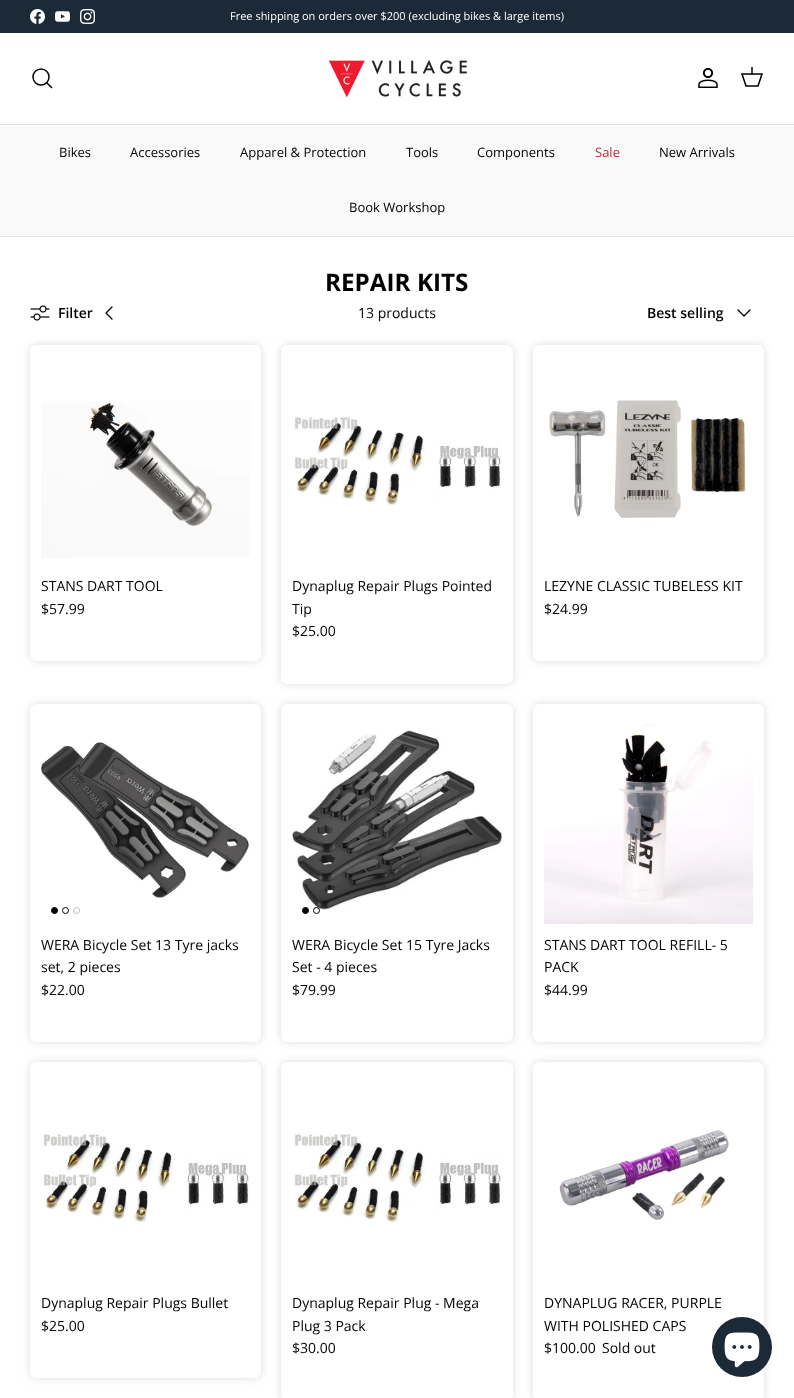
<?xml version="1.0" encoding="UTF-8"?>
<svg xmlns="http://www.w3.org/2000/svg" width="794" height="1398">
    <defs>
        <clipPath id="clip1"><path d="M 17 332 H 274 V 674 H 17 Z M 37 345 H 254 C 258 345 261 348 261 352 V 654 C 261 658 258 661 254 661 H 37 C 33 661 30 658 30 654 V 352 C 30 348 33 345 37 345 Z" clip-rule="evenodd"/></clipPath>
        <filter id="blur1" x="-50%" y="-200%" width="200%" height="500%"><feGaussianBlur stdDeviation="4"/></filter>
        <clipPath id="clip2"><path d="M 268 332 H 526 V 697 H 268 Z M 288 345 H 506 C 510 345 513 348 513 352 V 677 C 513 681 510 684 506 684 H 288 C 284 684 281 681 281 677 V 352 C 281 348 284 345 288 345 Z" clip-rule="evenodd"/></clipPath>
        <clipPath id="clip3"><path d="M 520 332 H 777 V 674 H 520 Z M 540 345 H 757 C 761 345 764 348 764 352 V 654 C 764 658 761 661 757 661 H 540 C 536 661 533 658 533 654 V 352 C 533 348 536 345 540 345 Z" clip-rule="evenodd"/></clipPath>
        <clipPath id="clip4"><path d="M 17 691 H 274 V 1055 H 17 Z M 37 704 H 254 C 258 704 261 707 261 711 V 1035 C 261 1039 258 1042 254 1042 H 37 C 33 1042 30 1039 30 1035 V 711 C 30 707 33 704 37 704 Z" clip-rule="evenodd"/></clipPath>
        <clipPath id="clip5"><path d="M 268 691 H 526 V 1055 H 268 Z M 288 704 H 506 C 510 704 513 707 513 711 V 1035 C 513 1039 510 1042 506 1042 H 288 C 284 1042 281 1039 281 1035 V 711 C 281 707 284 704 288 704 Z" clip-rule="evenodd"/></clipPath>
        <clipPath id="clip6"><path d="M 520 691 H 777 V 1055 H 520 Z M 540 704 H 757 C 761 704 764 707 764 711 V 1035 C 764 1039 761 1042 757 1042 H 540 C 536 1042 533 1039 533 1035 V 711 C 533 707 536 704 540 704 Z" clip-rule="evenodd"/></clipPath>
        <clipPath id="clip7"><path d="M 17 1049 H 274 V 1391 H 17 Z M 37 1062 H 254 C 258 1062 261 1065 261 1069 V 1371 C 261 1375 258 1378 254 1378 H 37 C 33 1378 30 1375 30 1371 V 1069 C 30 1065 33 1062 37 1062 Z" clip-rule="evenodd"/></clipPath>
        <clipPath id="clip8"><path d="M 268 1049 H 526 V 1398 H 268 Z M 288 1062 H 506 C 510 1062 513 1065 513 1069 V 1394 C 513 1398 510 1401 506 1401 H 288 C 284 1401 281 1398 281 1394 V 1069 C 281 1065 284 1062 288 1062 Z" clip-rule="evenodd"/></clipPath>
        <clipPath id="clip9"><path d="M 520 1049 H 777 V 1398 H 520 Z M 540 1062 H 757 C 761 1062 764 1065 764 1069 V 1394 C 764 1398 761 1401 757 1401 H 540 C 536 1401 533 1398 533 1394 V 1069 C 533 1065 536 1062 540 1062 Z" clip-rule="evenodd"/></clipPath>
    </defs>
    <rect width="100%" height="100%" fill="#FFFFFF"/>
    <rect x="0" y="0" width="794" height="33" fill="#1C2A38"/>
    <image x="30" y="9" width="15" height="15" href="img_01.png"/>
    <image x="55" y="11" width="15" height="11" href="img_02.png"/>
    <image x="80" y="9" width="15" height="15" href="img_03.png"/>
    <text x="230" y="20" font-family="Open Sans" font-size="11" fill="#FFFFFF">Free shipping on orders over $200 (excluding bikes &amp; large items)</text>
    <rect x="0" y="124" width="794" height="1" fill="#E2E2E2"/>
    <circle cx="41" cy="77" r="8" fill="none" stroke="#000000" stroke-width="1.5"/>
    <path d="M 47 83 L 51.5 87.5" fill="none" stroke="#000000" stroke-width="1.5" stroke-linecap="square"/>
    <image x="328" y="60" width="139" height="38" href="img_04.png"/>
    <image x="698" y="68" width="20" height="20" href="img_05.png"/>
    <path d="M 742 74 H 762 L 758 86 H 746 Z" fill="none" stroke="#000000" stroke-width="1.5"/>
    <rect x="751" y="67" width="2" height="8" fill="#000000" fill-opacity="0.75"/>
    <rect x="0" y="236" width="794" height="1" fill="#E2E2E2"/>
    <rect x="0" y="125" width="794" height="111" fill="#F9F9F9"/>
    <text x="59" y="157" font-family="Open Sans" font-size="13" fill="#000000">Bikes</text>
    <text x="130" y="157" font-family="Open Sans" font-size="13" fill="#000000">Accessories</text>
    <text x="240" y="157" font-family="Open Sans" font-size="13" fill="#000000">Apparel &amp; Protection</text>
    <text x="406" y="157" font-family="Open Sans" font-size="13" fill="#000000">Tools</text>
    <text x="477" y="157" font-family="Open Sans" font-size="13" fill="#000000">Components</text>
    <text x="595" y="157" font-family="Open Sans" font-size="13" fill="#C4293D">Sale</text>
    <text x="659" y="157" font-family="Open Sans" font-size="13" fill="#000000">New Arrivals</text>
    <text x="349" y="212" font-family="Open Sans" font-size="13" fill="#000000">Book Workshop</text>
    <text x="325" y="291" font-family="Open Sans" font-size="24.25" font-weight="700" fill="#000000">REPAIR KITS</text>
    <image x="30" y="305" width="20" height="16" href="img_06.png"/>
    <text x="58" y="318" font-family="Open Sans" font-size="14" font-weight="600" fill="#000000">Filter</text>
    <path d="M 112 307 L 106 313 L 112 319" fill="none" stroke="#000000" stroke-width="1.3" stroke-linecap="round" stroke-linejoin="round"/>
    <text x="358" y="318" font-family="Open Sans" font-size="14" fill="#000000">13 products</text>
    <text x="647" y="318" font-family="Open Sans" font-size="14" font-weight="600" fill="#000000">Best selling</text>
    <path d="M 738 310 L 744 316 L 750 310" fill="none" stroke="#000000" stroke-width="1.3" stroke-linecap="round" stroke-linejoin="round"/>
    <g clip-path="url(#clip1)">
        <rect x="30" y="345" width="231" height="316" rx="7" fill="#CCCCCC" fill-opacity="0.7" filter="url(#blur1)"/>
    </g>
    <rect x="30.5" y="345.5" width="230" height="315" rx="6.5" fill="none" stroke="#FFFFFF"/>
    <image x="41" y="401" width="209" height="157" href="img_07.png"/>
    <text font-family="Open Sans" font-size="14" fill="#000000">
        <tspan x="41" y="591">STANS DART TOOL</tspan>
        <tspan x="41" y="614">$57.99</tspan>
    </text>
    <g clip-path="url(#clip2)">
        <rect x="281" y="345" width="232" height="339" rx="7" fill="#CCCCCC" fill-opacity="0.7" filter="url(#blur1)"/>
    </g>
    <rect x="281.5" y="345.5" width="231" height="338" rx="6.5" fill="none" stroke="#FFFFFF"/>
    <image x="294" y="416" width="208" height="89" href="img_08.png"/>
    <text font-family="Open Sans" font-size="14" fill="#000000">
        <tspan x="292" y="591">Dynaplug Repair Plugs Pointed</tspan>
        <tspan x="292" y="614">Tip</tspan>
        <tspan x="292" y="636">$25.00</tspan>
    </text>
    <g clip-path="url(#clip3)">
        <rect x="533" y="345" width="231" height="316" rx="7" fill="#CCCCCC" fill-opacity="0.7" filter="url(#blur1)"/>
    </g>
    <rect x="533.5" y="345.5" width="230" height="315" rx="6.5" fill="none" stroke="#FFFFFF"/>
    <image x="549" y="400" width="197" height="118" href="img_09.png"/>
    <text font-family="Open Sans" font-size="14" fill="#000000">
        <tspan x="544" y="591">LEZYNE CLASSIC TUBELESS KIT</tspan>
        <tspan x="544" y="614">$24.99</tspan>
    </text>
    <g clip-path="url(#clip4)">
        <rect x="30" y="704" width="231" height="338" rx="7" fill="#CCCCCC" fill-opacity="0.7" filter="url(#blur1)"/>
    </g>
    <rect x="30.5" y="704.5" width="230" height="337" rx="6.5" fill="none" stroke="#FFFFFF"/>
    <image x="41" y="742" width="208" height="156" href="img_10.png"/>
    <circle cx="54.5" cy="910.5" r="3" fill="#000000" stroke="#000000"/>
    <circle cx="65.5" cy="910.5" r="3" fill="none" stroke="#000000"/>
    <circle cx="76.5" cy="910.5" r="3" fill="none" stroke="#BFBFBF"/>
    <text font-family="Open Sans" font-size="14" fill="#000000">
        <tspan x="41" y="950">WERA Bicycle Set 13 Tyre jacks</tspan>
        <tspan x="41" y="972">set, 2 pieces</tspan>
        <tspan x="41" y="995">$22.00</tspan>
    </text>
    <g clip-path="url(#clip5)">
        <rect x="281" y="704" width="232" height="338" rx="7" fill="#CCCCCC" fill-opacity="0.7" filter="url(#blur1)"/>
    </g>
    <rect x="281.5" y="704.5" width="231" height="337" rx="6.5" fill="none" stroke="#FFFFFF"/>
    <image x="292" y="730" width="210" height="180" href="img_11.png"/>
    <circle cx="305.5" cy="910.5" r="3" fill="#000000" stroke="#000000"/>
    <circle cx="316.5" cy="910.5" r="3" fill="none" stroke="#000000"/>
    <text font-family="Open Sans" font-size="14" fill="#000000">
        <tspan x="292" y="950">WERA Bicycle Set 15 Tyre Jacks</tspan>
        <tspan x="292" y="972">Set - 4 pieces</tspan>
        <tspan x="292" y="995">$79.99</tspan>
    </text>
    <g clip-path="url(#clip6)">
        <rect x="533" y="704" width="231" height="338" rx="7" fill="#CCCCCC" fill-opacity="0.7" filter="url(#blur1)"/>
    </g>
    <rect x="533.5" y="704.5" width="230" height="337" rx="6.5" fill="none" stroke="#FFFFFF"/>
    <image x="544" y="724" width="209" height="200" href="img_12.png"/>
    <text font-family="Open Sans" font-size="14" fill="#000000">
        <tspan x="544" y="950">STANS DART TOOL REFILL- 5</tspan>
        <tspan x="544" y="972">PACK</tspan>
        <tspan x="544" y="995">$44.99</tspan>
    </text>
    <g clip-path="url(#clip7)">
        <rect x="30" y="1062" width="231" height="316" rx="7" fill="#CCCCCC" fill-opacity="0.7" filter="url(#blur1)"/>
    </g>
    <rect x="30.5" y="1062.5" width="230" height="315" rx="6.5" fill="none" stroke="#FFFFFF"/>
    <image x="43" y="1133" width="207" height="89" href="img_13.png"/>
    <text font-family="Open Sans" font-size="14" fill="#000000">
        <tspan x="41" y="1308">Dynaplug Repair Plugs Bullet</tspan>
        <tspan x="41" y="1331">$25.00</tspan>
    </text>
    <g clip-path="url(#clip8)">
        <rect x="281" y="1062" width="232" height="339" rx="7" fill="#CCCCCC" fill-opacity="0.7" filter="url(#blur1)"/>
    </g>
    <rect x="281.5" y="1062.5" width="231" height="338" rx="6.5" fill="none" stroke="#FFFFFF"/>
    <image x="294" y="1133" width="208" height="89" href="img_08.png"/>
    <text font-family="Open Sans" font-size="14" fill="#000000">
        <tspan x="292" y="1308">Dynaplug Repair Plug - Mega</tspan>
        <tspan x="292" y="1331">Plug 3 Pack</tspan>
        <tspan x="292" y="1353">$30.00</tspan>
    </text>
    <g clip-path="url(#clip9)">
        <rect x="533" y="1062" width="231" height="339" rx="7" fill="#CCCCCC" fill-opacity="0.7" filter="url(#blur1)"/>
    </g>
    <rect x="533.5" y="1062.5" width="230" height="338" rx="6.5" fill="none" stroke="#FFFFFF"/>
    <image x="559" y="1130" width="170" height="90" href="img_14.png"/>
    <text font-family="Open Sans" font-size="14" fill="#000000">
        <tspan x="544" y="1308">DYNAPLUG RACER, PURPLE</tspan>
        <tspan x="544" y="1331">WITH POLISHED CAPS</tspan>
        <tspan x="544" y="1353">$100.00</tspan>
    </text>
    <text x="602" y="1353" font-family="Open Sans" font-size="14" fill="#000000">Sold out</text>
    <circle cx="742" cy="1347" r="30" fill="#1C2A38"/>
    <image x="724" y="1332" width="36" height="36" href="img_15.png"/>
</svg>
